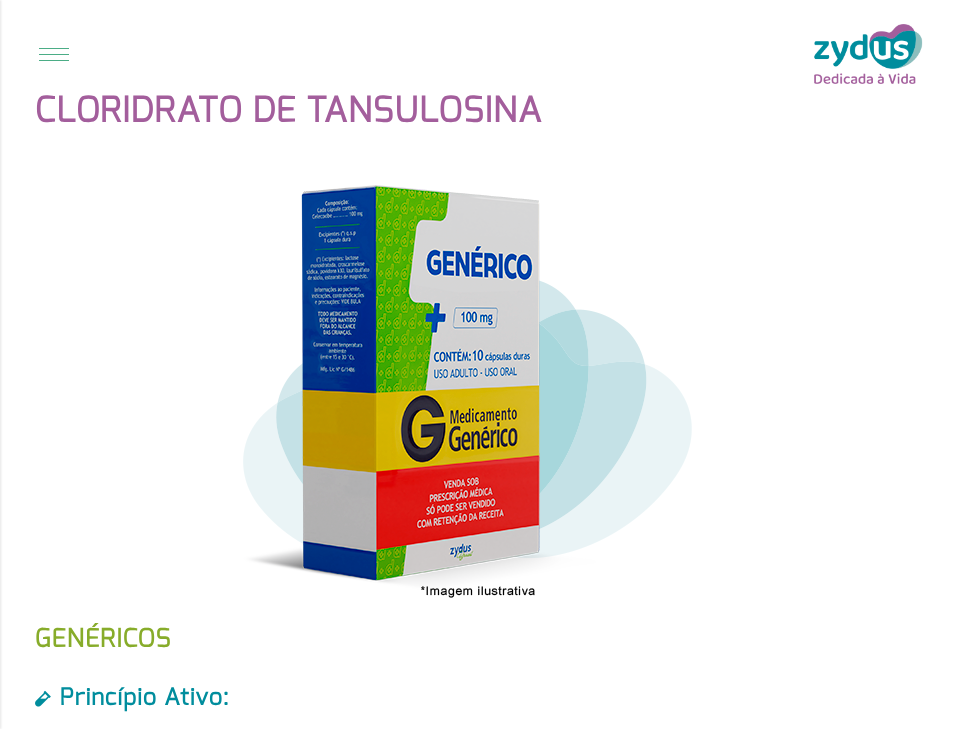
<?xml version="1.0" encoding="UTF-8"?>
<svg xmlns="http://www.w3.org/2000/svg" width="955" height="729">
    <defs>
        <filter id="blur1" x="-50%" y="-200%" width="200%" height="500%"><feGaussianBlur stdDeviation="1"/></filter>
    </defs>
    <rect width="100%" height="100%" fill="#FFFFFF"/>
    <rect x="-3" y="0" width="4" height="729" fill="#000000" fill-opacity="0.1" filter="url(#blur1)"/>
    <rect x="39" y="48" width="30" height="1" fill="#4BAD86"/>
    <rect x="39" y="54" width="30" height="1" fill="#4BAD86"/>
    <rect x="39" y="60" width="30" height="1" fill="#4BAD86"/>
    <image x="814" y="24" width="109" height="60" href="img_01.png"/>
    <text x="35" y="122" font-family="Exo" font-size="35" font-weight="700" letter-spacing="1" fill="#A35E9C">CLORIDRATO DE TANSULOSINA</text>
    <image x="243" y="185" width="449" height="413" href="img_02.png"/>
    <text x="35" y="647" font-family="Exo" font-size="25.25" font-weight="700" letter-spacing="1" fill="#87AC2A">GENÉRICOS</text>
    <image x="35" y="690" width="16" height="17" href="img_03.png"/>
    <text x="60" y="705" font-family="Exo" font-size="23.5" font-weight="700" letter-spacing="1" fill="#008D9D">Princípio Ativo:</text>
</svg>
